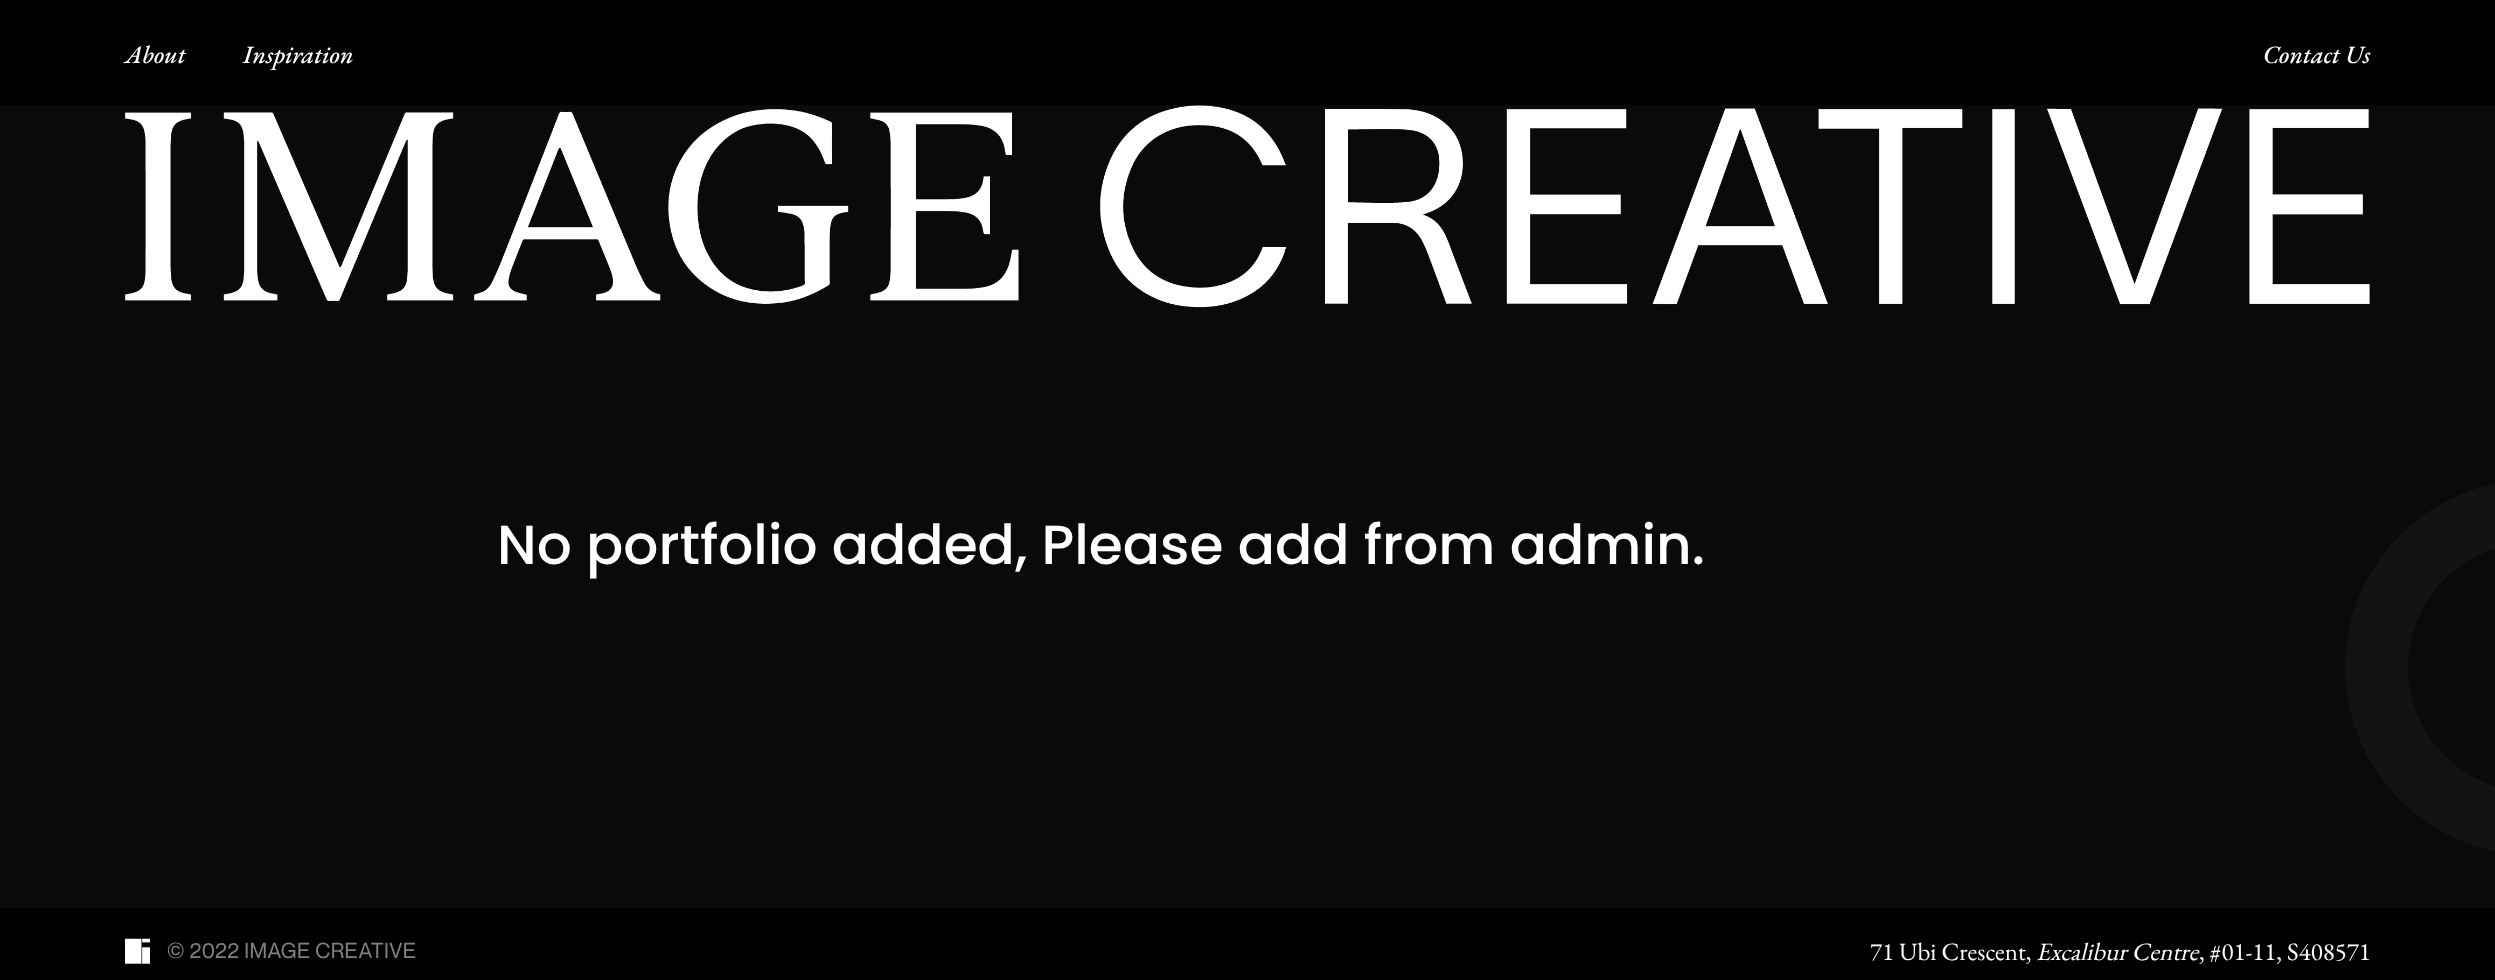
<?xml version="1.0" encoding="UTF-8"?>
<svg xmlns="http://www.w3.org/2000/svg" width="2495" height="980">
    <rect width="100%" height="100%" fill="#090B0B"/>
    <rect x="0" y="0" width="2495" height="105" fill="#000000"/>
    <text x="125" y="63" font-family="EB Garamond" font-size="25" font-weight="500" font-style="italic" fill="#FFFFFF">About</text>
    <text x="243" y="63" font-family="EB Garamond" font-size="25" font-weight="500" font-style="italic" fill="#FFFFFF">Inspiration</text>
    <text x="2263" y="63" font-family="EB Garamond" font-size="25" font-weight="500" font-style="italic" fill="#FFFFFF">Contact Us</text>
    <image x="125" y="105" width="2245" height="203" href="img_01.png"/>
    <text x="497" y="564" font-family="Poppins" font-size="55" font-weight="500" fill="#FFFFFF">No portfolio added, Please add from admin.</text>
    <rect x="0" y="908" width="2495" height="72" fill="#000000"/>
    <image x="125" y="938" width="25" height="26" href="img_02.png"/>
    <text x="167" y="958" font-family="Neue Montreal" font-size="21.25" letter-spacing="0.4" fill="#808080">© 2022 IMAGE CREATIVE</text>
    <text x="1870" y="960" font-family="EB Garamond" font-size="25" fill="#FFFFFF">71 Ubi Crescent,</text>
    <text x="2036" y="960" font-family="EB Garamond" font-size="25" font-style="italic" fill="#FFFFFF">Excalibur Centre</text>
    <text x="2199" y="960" font-family="EB Garamond" font-size="25" fill="#FFFFFF">, #01-11, S408571</text>
    <circle cx="2532.5" cy="667.5" r="156" fill="none" stroke="#121414" stroke-width="63"/>
</svg>
